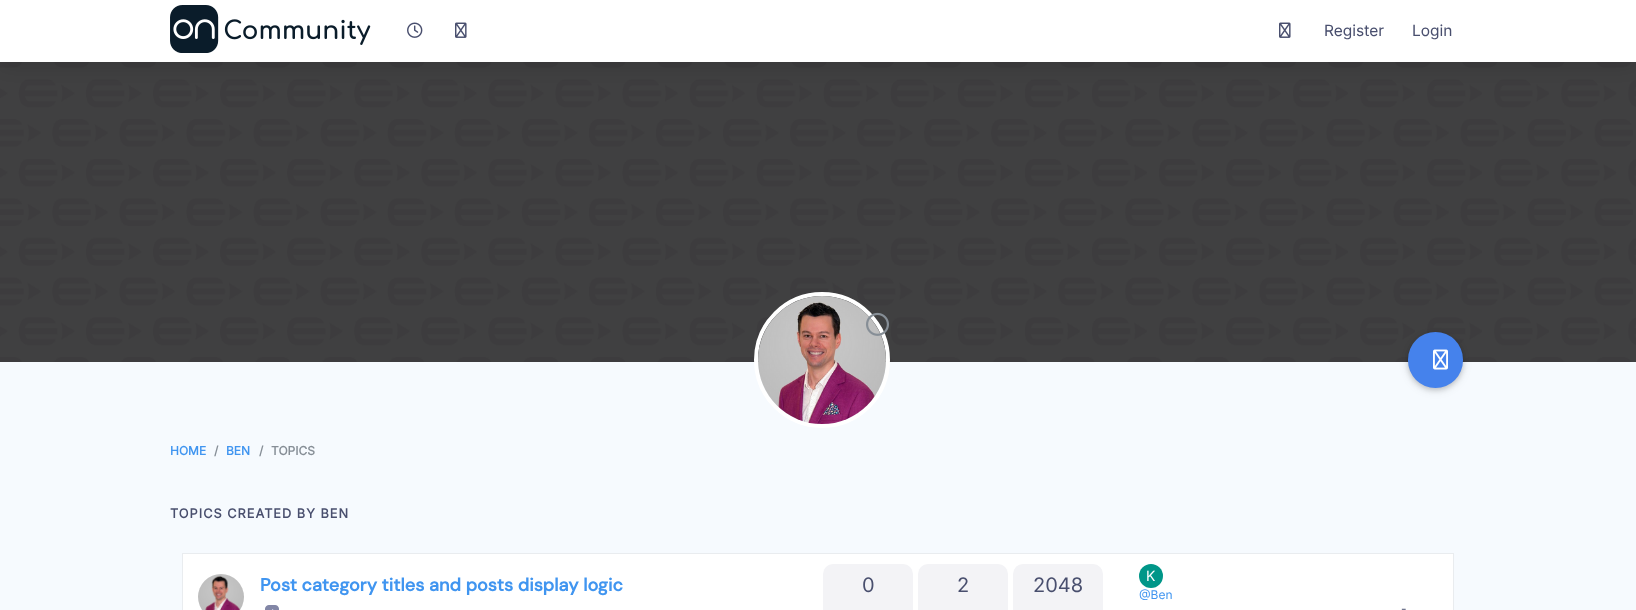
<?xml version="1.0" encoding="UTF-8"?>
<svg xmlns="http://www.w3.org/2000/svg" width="1636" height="610">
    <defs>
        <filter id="blur1" x="-50%" y="-200%" width="200%" height="500%"><feGaussianBlur stdDeviation="10"/></filter>
        <filter id="blur2" x="-50%" y="-200%" width="200%" height="500%"><feGaussianBlur stdDeviation="5"/></filter>
        <filter id="blur3" x="-50%" y="-200%" width="200%" height="500%"><feGaussianBlur stdDeviation="2.5"/></filter>
    </defs>
    <rect width="100%" height="100%" fill="#F6FAFE"/>
    <image x="0" y="62" width="1636" height="300" href="img_04.png"/>
    <rect x="0" y="5" width="1636" height="62" fill="#202020" fill-opacity="0.12" filter="url(#blur1)"/>
    <rect x="0" y="0" width="1636" height="62" fill="#FFFFFF"/>
    <image x="170" y="5" width="201" height="48" href="img_01.png"/>
    <image x="407" y="22" width="16" height="16" href="img_02.png"/>
    <image x="455" y="22" width="12" height="16" href="img_03.png"/>
    <image x="1279" y="22" width="12" height="16" href="img_03.png"/>
    <text x="1324" y="36" font-family="Inter" font-size="15.5" fill="#494F6E">Register</text>
    <text x="1412" y="36" font-family="Inter" font-size="15.5" fill="#494F6E">Login</text>
    <circle cx="822" cy="360" r="66" fill="none" stroke="#FFFFFF" stroke-width="4"/>
    <image x="758" y="296" width="128" height="128" href="img_05.png"/>
    <image x="866" y="312" width="23" height="24" href="img_06.png"/>
    <rect x="1408" y="334" width="55" height="56" rx="27.5" fill="#000000" fill-opacity="0.12" filter="url(#blur2)"/>
    <rect x="1408" y="334" width="55" height="56" rx="27.5" fill="#000000" fill-opacity="0.16" filter="url(#blur3)"/>
    <rect x="1408" y="332" width="55" height="56" rx="27.5" fill="#4582EC"/>
    <image x="1433" y="349" width="15" height="21" href="img_07.png"/>
    <text x="170" y="455" font-family="Inter" font-size="12" font-weight="700" fill="#4095F0">HOME</text>
    <text x="214" y="455" font-family="Inter" font-size="12" font-weight="700" fill="#868E96">/</text>
    <text x="226" y="455" font-family="Inter" font-size="12" font-weight="700" fill="#4095F0">BEN</text>
    <text x="259" y="455" font-family="Inter" font-size="12" font-weight="700" fill="#868E96">/</text>
    <text x="271" y="455" font-family="Inter" font-size="12" font-weight="700" fill="#868E96">TOPICS</text>
    <text x="170" y="518" font-family="Inter" font-size="12.75" font-weight="700" letter-spacing="1" fill="#494F6E">TOPICS CREATED BY BEN</text>
    <rect x="183" y="554" width="1270" height="56" fill="#FFFFFF"/>
    <rect x="182" y="553" width="1272" height="1" fill="#E9ECEF"/>
    <rect x="1453" y="553" width="1" height="57" fill="#E9ECEF"/>
    <rect x="182" y="553" width="1" height="57" fill="#E9ECEF"/>
    <image x="198" y="574" width="46" height="36" href="img_08.png"/>
    <text x="260" y="591" font-family="DM Sans" font-size="18" font-weight="700" fill="#4095F0">Post category titles and posts display logic</text>
    <image x="265" y="605" width="14" height="5" href="img_09.png"/>
    <rect x="823" y="564" width="90" height="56" rx="10" fill="#F3F3F6"/>
    <text x="862" y="592" font-family="Inter" font-size="20" fill="#494F6E">0</text>
    <rect x="918" y="564" width="90" height="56" rx="10" fill="#F3F3F6"/>
    <text x="957" y="592" font-family="Inter" font-size="20" fill="#494F6E">2</text>
    <rect x="1013" y="564" width="90" height="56" rx="10" fill="#F3F3F6"/>
    <text x="1033" y="592" font-family="Inter" font-size="20" fill="#494F6E">2048</text>
    <circle cx="1151" cy="576" r="12" fill="#009688"/>
    <text x="1146" y="581" font-family="Inter" font-size="14" fill="#FFFFFF">K</text>
    <text x="1139" y="599" font-family="Inter" font-size="12" fill="#4095F0">@Ben</text>
    <text x="1401" y="613" font-family="Inter" font-size="12" fill="#494F6E">-</text>
</svg>
